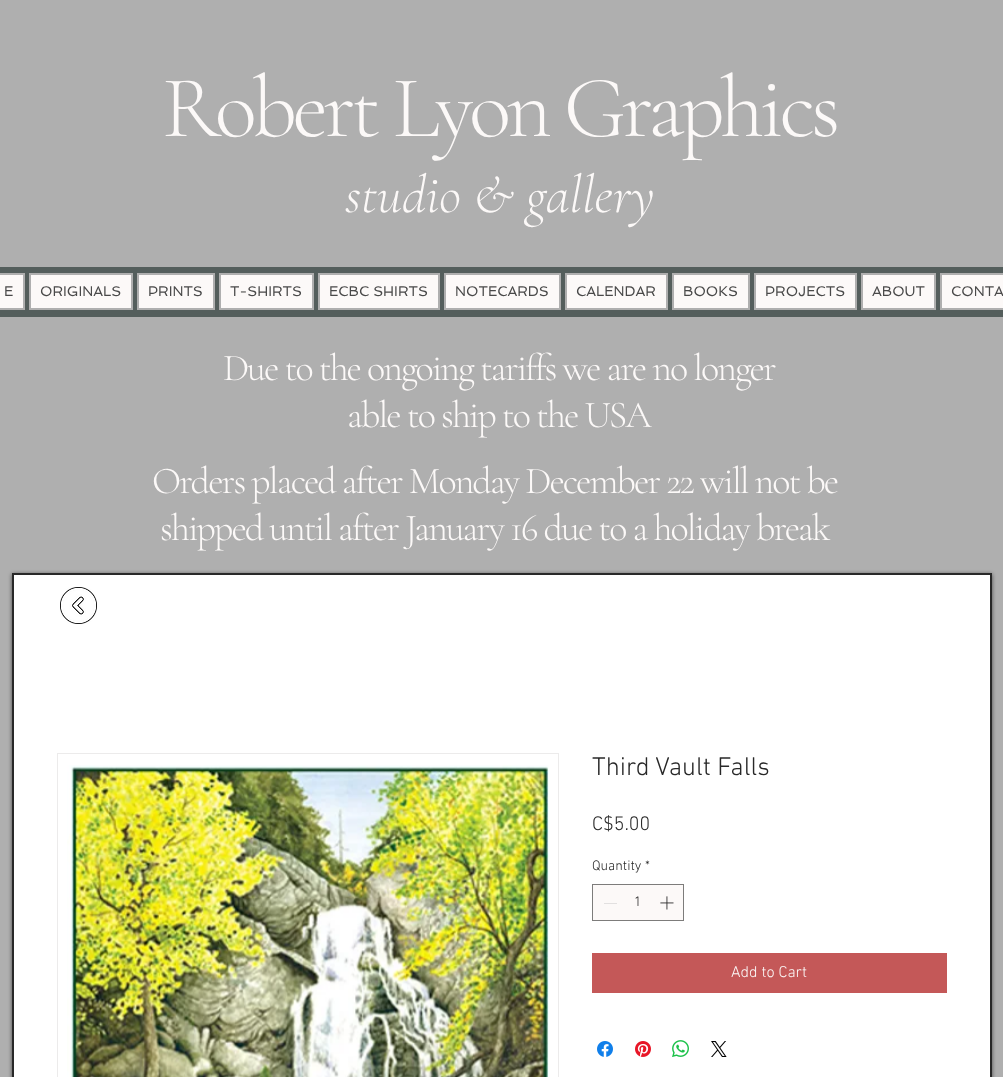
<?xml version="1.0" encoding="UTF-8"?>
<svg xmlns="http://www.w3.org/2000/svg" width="1003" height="1077">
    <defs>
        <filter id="blur1" x="-50%" y="-200%" width="200%" height="500%"><feGaussianBlur stdDeviation="2"/></filter>
    </defs>
    <rect width="100%" height="100%" fill="#AFAFAF"/>
    <text x="162" y="136" font-family="Cormorant Garamond" font-size="88" font-weight="300" letter-spacing="-4.4" fill="#FCF9F8">Robert Lyon Graphics</text>
    <text x="345" y="212" font-family="Cormorant Garamond" font-size="54" font-weight="300" font-style="italic" fill="#FCF9F8">studio &amp; gallery</text>
    <rect x="0" y="267" width="1003" height="50" fill="#545E5C"/>
    <rect x="-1" y="274" width="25" height="35" fill="#FCF9F8" stroke="#AFAFAF" stroke-width="2"/>
    <text x="4" y="296" font-family="Spinnaker" font-size="14" fill="#494949">E</text>
    <rect x="30" y="274" width="102" height="35" fill="#FCF9F8" stroke="#AFAFAF" stroke-width="2"/>
    <text x="40" y="296" font-family="Spinnaker" font-size="14" fill="#494949">ORIGINALS</text>
    <rect x="138" y="274" width="76" height="35" fill="#FCF9F8" stroke="#AFAFAF" stroke-width="2"/>
    <text x="148" y="296" font-family="Spinnaker" font-size="14" fill="#494949">PRINTS</text>
    <rect x="220" y="274" width="93" height="35" fill="#FCF9F8" stroke="#AFAFAF" stroke-width="2"/>
    <text x="230" y="296" font-family="Spinnaker" font-size="14" fill="#494949">T-SHIRTS</text>
    <rect x="319" y="274" width="120" height="35" fill="#FCF9F8" stroke="#AFAFAF" stroke-width="2"/>
    <text x="329" y="296" font-family="Spinnaker" font-size="14" fill="#494949">ECBC SHIRTS</text>
    <rect x="445" y="274" width="115" height="35" fill="#FCF9F8" stroke="#AFAFAF" stroke-width="2"/>
    <text x="455" y="296" font-family="Spinnaker" font-size="14" fill="#494949">NOTECARDS</text>
    <rect x="566" y="274" width="101" height="35" fill="#FCF9F8" stroke="#AFAFAF" stroke-width="2"/>
    <text x="576" y="296" font-family="Spinnaker" font-size="14" fill="#494949">CALENDAR</text>
    <rect x="673" y="274" width="76" height="35" fill="#FCF9F8" stroke="#AFAFAF" stroke-width="2"/>
    <text x="683" y="296" font-family="Spinnaker" font-size="14" fill="#494949">BOOKS</text>
    <rect x="755" y="274" width="101" height="35" fill="#FCF9F8" stroke="#AFAFAF" stroke-width="2"/>
    <text x="765" y="296" font-family="Spinnaker" font-size="14" fill="#494949">PROJECTS</text>
    <rect x="862" y="274" width="73" height="35" fill="#FCF9F8" stroke="#AFAFAF" stroke-width="2"/>
    <text x="872" y="296" font-family="Spinnaker" font-size="14" fill="#494949">ABOUT</text>
    <rect x="941" y="274" width="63" height="35" fill="#FCF9F8" stroke="#AFAFAF" stroke-width="2"/>
    <text x="951" y="296" font-family="Spinnaker" font-size="14" fill="#494949">CONTA</text>
    <text x="223" y="380" font-family="Cormorant Garamond" font-size="38" font-weight="300" letter-spacing="-1.9" fill="#FCF9F8">Due to the ongoing tariffs we are no longer</text>
    <text x="347" y="427" font-family="Cormorant Garamond" font-size="38" font-weight="300" letter-spacing="-1.9" fill="#FCF9F8">able to ship to the USA</text>
    <text x="152" y="493" font-family="Cormorant Garamond" font-size="38" font-weight="300" letter-spacing="-1.9" fill="#FCF9F8">Orders placed after Monday December 22 will not be</text>
    <text x="160" y="540" font-family="Cormorant Garamond" font-size="38" font-weight="300" letter-spacing="-1.9" fill="#FCF9F8">shipped until after January 16 due to a holiday break</text>
    <rect x="12" y="574" width="980" height="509" fill="#000000" fill-opacity="0.6" filter="url(#blur1)"/>
    <rect x="13" y="574" width="978" height="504" fill="#FFFFFF" stroke="#282828" stroke-width="2"/>
    <image x="60" y="587" width="37" height="37" href="img_01.png"/>
    <rect x="57.5" y="753.5" width="501" height="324" fill="none" stroke="#ECEBEB"/>
    <image x="67" y="765" width="482" height="312" href="img_02.png"/>
    <text x="592" y="775" font-family="'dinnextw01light'" font-size="26" font-weight="300" fill="#282828">Third Vault Falls</text>
    <text x="592" y="830" font-family="'dinnextw01light'" font-size="20" font-weight="300" fill="#282828">C$5.00</text>
    <text x="592" y="870" font-family="'dinnextw01light'" font-size="14" font-weight="300" fill="#282828">Quantity</text>
    <text x="645" y="870" font-family="'dinnextw01light'" font-size="14" font-weight="300" fill="#282828">*</text>
    <rect x="592.5" y="884.5" width="91" height="36" fill="#FCF9F8" stroke="#7D7C7B"/>
    <rect x="604" y="903" width="13" height="1" fill="#E2E0E0"/>
    <text x="634" y="906" font-family="'dinnextw01light'" font-size="14" font-weight="300" fill="#282828">1</text>
    <image x="660" y="896" width="14" height="14" href="img_03.png"/>
    <rect x="592" y="953" width="355" height="40" fill="#C45858"/>
    <text x="731" y="977" font-family="'dinnextw01light'" font-size="16" font-weight="300" fill="#FCF9F8">Add to Cart</text>
    <image x="597" y="1041" width="16" height="16" href="img_04.png"/>
    <image x="635" y="1041" width="16" height="16" href="img_05.png"/>
    <image x="672" y="1040" width="17" height="17" href="img_06.png"/>
    <image x="711" y="1041" width="16" height="16" href="img_07.png"/>
</svg>
